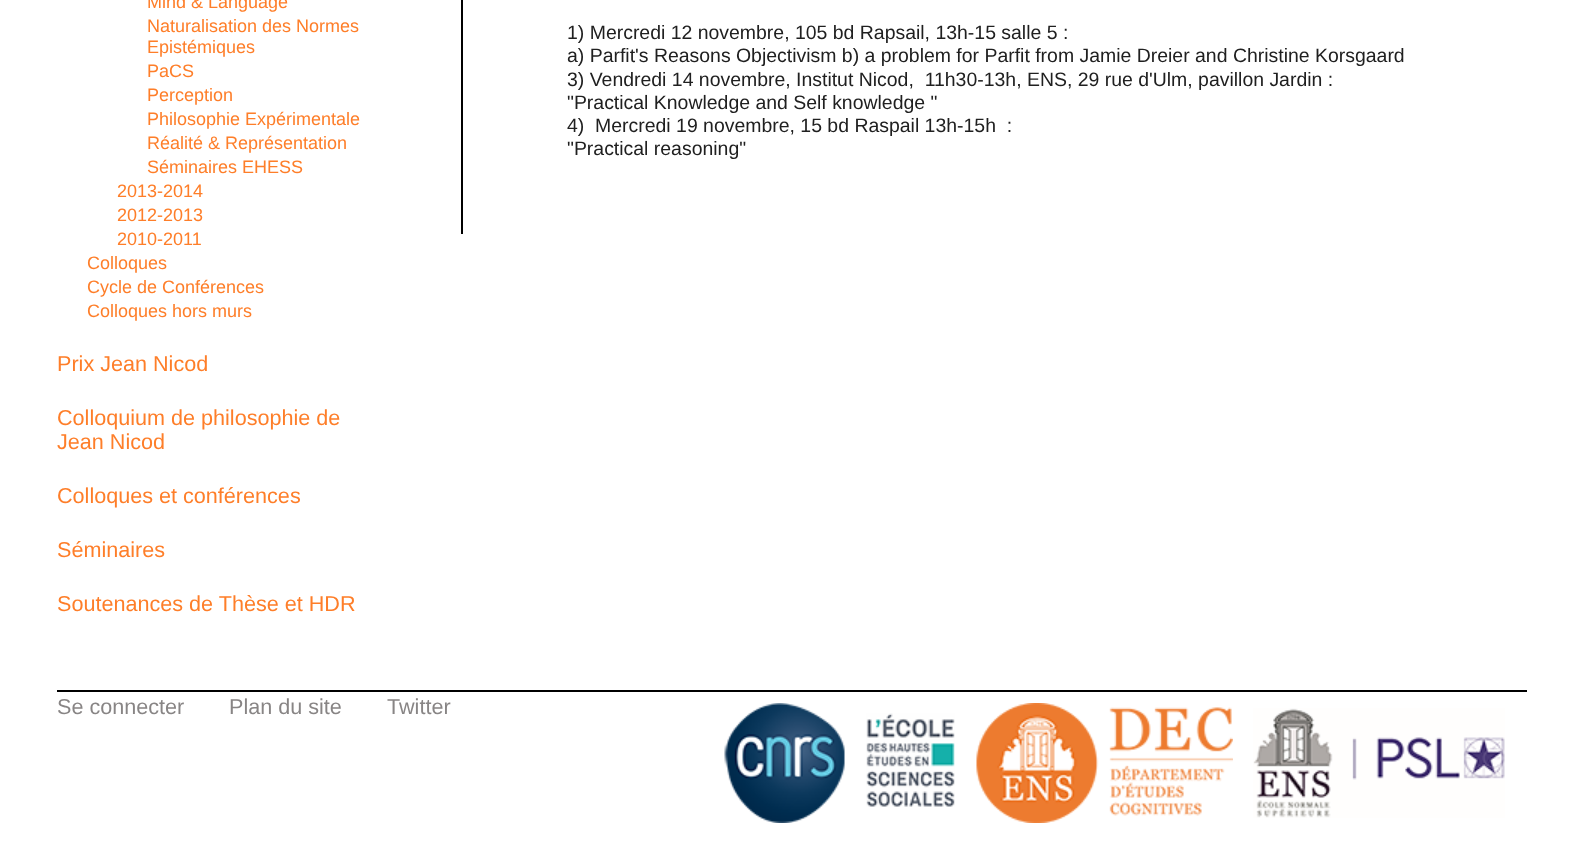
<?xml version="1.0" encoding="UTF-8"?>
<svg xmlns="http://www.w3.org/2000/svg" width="1583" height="842">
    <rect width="100%" height="100%" fill="#FFFFFF"/>
    <text font-family="Liberation Sans" font-size="18" fill="#FE7E29">
        <tspan x="147" y="8">Mind &amp; Language</tspan>
        <tspan x="147" y="32">Naturalisation des Normes</tspan>
        <tspan x="147" y="53">Epistémiques</tspan>
        <tspan x="147" y="77">PaCS</tspan>
        <tspan x="147" y="101">Perception</tspan>
        <tspan x="147" y="125">Philosophie Expérimentale</tspan>
        <tspan x="147" y="149">Réalité &amp; Représentation</tspan>
        <tspan x="147" y="173">Séminaires EHESS</tspan>
    </text>
    <text font-family="Liberation Sans" font-size="18" fill="#FE7E29">
        <tspan x="117" y="197">2013-2014</tspan>
        <tspan x="117" y="221">2012-2013</tspan>
        <tspan x="117" y="245">2010-2011</tspan>
    </text>
    <text font-family="Liberation Sans" font-size="18" fill="#FE7E29">
        <tspan x="87" y="269">Colloques</tspan>
        <tspan x="87" y="293">Cycle de Conférences</tspan>
        <tspan x="87" y="317">Colloques hors murs</tspan>
    </text>
    <text x="57" y="371" font-family="Liberation Sans" font-size="21.6" fill="#FE7E29">Prix Jean Nicod</text>
    <text font-family="Liberation Sans" font-size="21.6" fill="#FE7E29">
        <tspan x="57" y="425">Colloquium de philosophie de</tspan>
        <tspan x="57" y="449">Jean Nicod</tspan>
    </text>
    <text x="57" y="503" font-family="Liberation Sans" font-size="21.6" fill="#FE7E29">Colloques et conférences</text>
    <text x="57" y="557" font-family="Liberation Sans" font-size="21.6" fill="#FE7E29">Séminaires</text>
    <text x="57" y="611" font-family="Liberation Sans" font-size="21.6" fill="#FE7E29">Soutenances de Thèse et HDR</text>
    <rect x="461" y="0" width="2" height="234" fill="#000000"/>
    <text font-family="Liberation Sans" font-size="19.45" fill="#202020" xml:space="preserve"><tspan x="567" y="39">1) Mercredi 12 novembre, 105 bd Rapsail, 13h-15 salle 5 :</tspan><tspan x="567" y="62">a) Parfit's Reasons Objectivism b) a problem for Parfit from Jamie Dreier and Christine Korsgaard</tspan><tspan x="567" y="86">3) Vendredi 14 novembre, Institut Nicod,  11h30-13h, ENS, 29 rue d'Ulm, pavillon Jardin :</tspan><tspan x="567" y="109">"Practical Knowledge and Self knowledge "</tspan><tspan x="567" y="132">4)  Mercredi 19 novembre, 15 bd Raspail 13h-15h  :</tspan><tspan x="567" y="155">"Practical reasoning"</tspan></text>
    <rect x="57" y="690" width="1470" height="2" fill="#000000"/>
    <text x="57" y="714" font-family="Liberation Sans" font-size="21.6" fill="#888585">Se connecter</text>
    <text x="229" y="714" font-family="Liberation Sans" font-size="21.6" fill="#888585">Plan du site</text>
    <text x="387" y="714" font-family="Liberation Sans" font-size="21.6" fill="#888585">Twitter</text>
    <image x="724" y="703" width="121" height="120" href="img_01.png"/>
    <image x="866" y="713" width="89" height="94" href="img_02.png"/>
    <image x="976" y="703" width="257" height="120" href="img_03.png"/>
    <image x="1253" y="708" width="252" height="110" href="img_04.png"/>
</svg>
